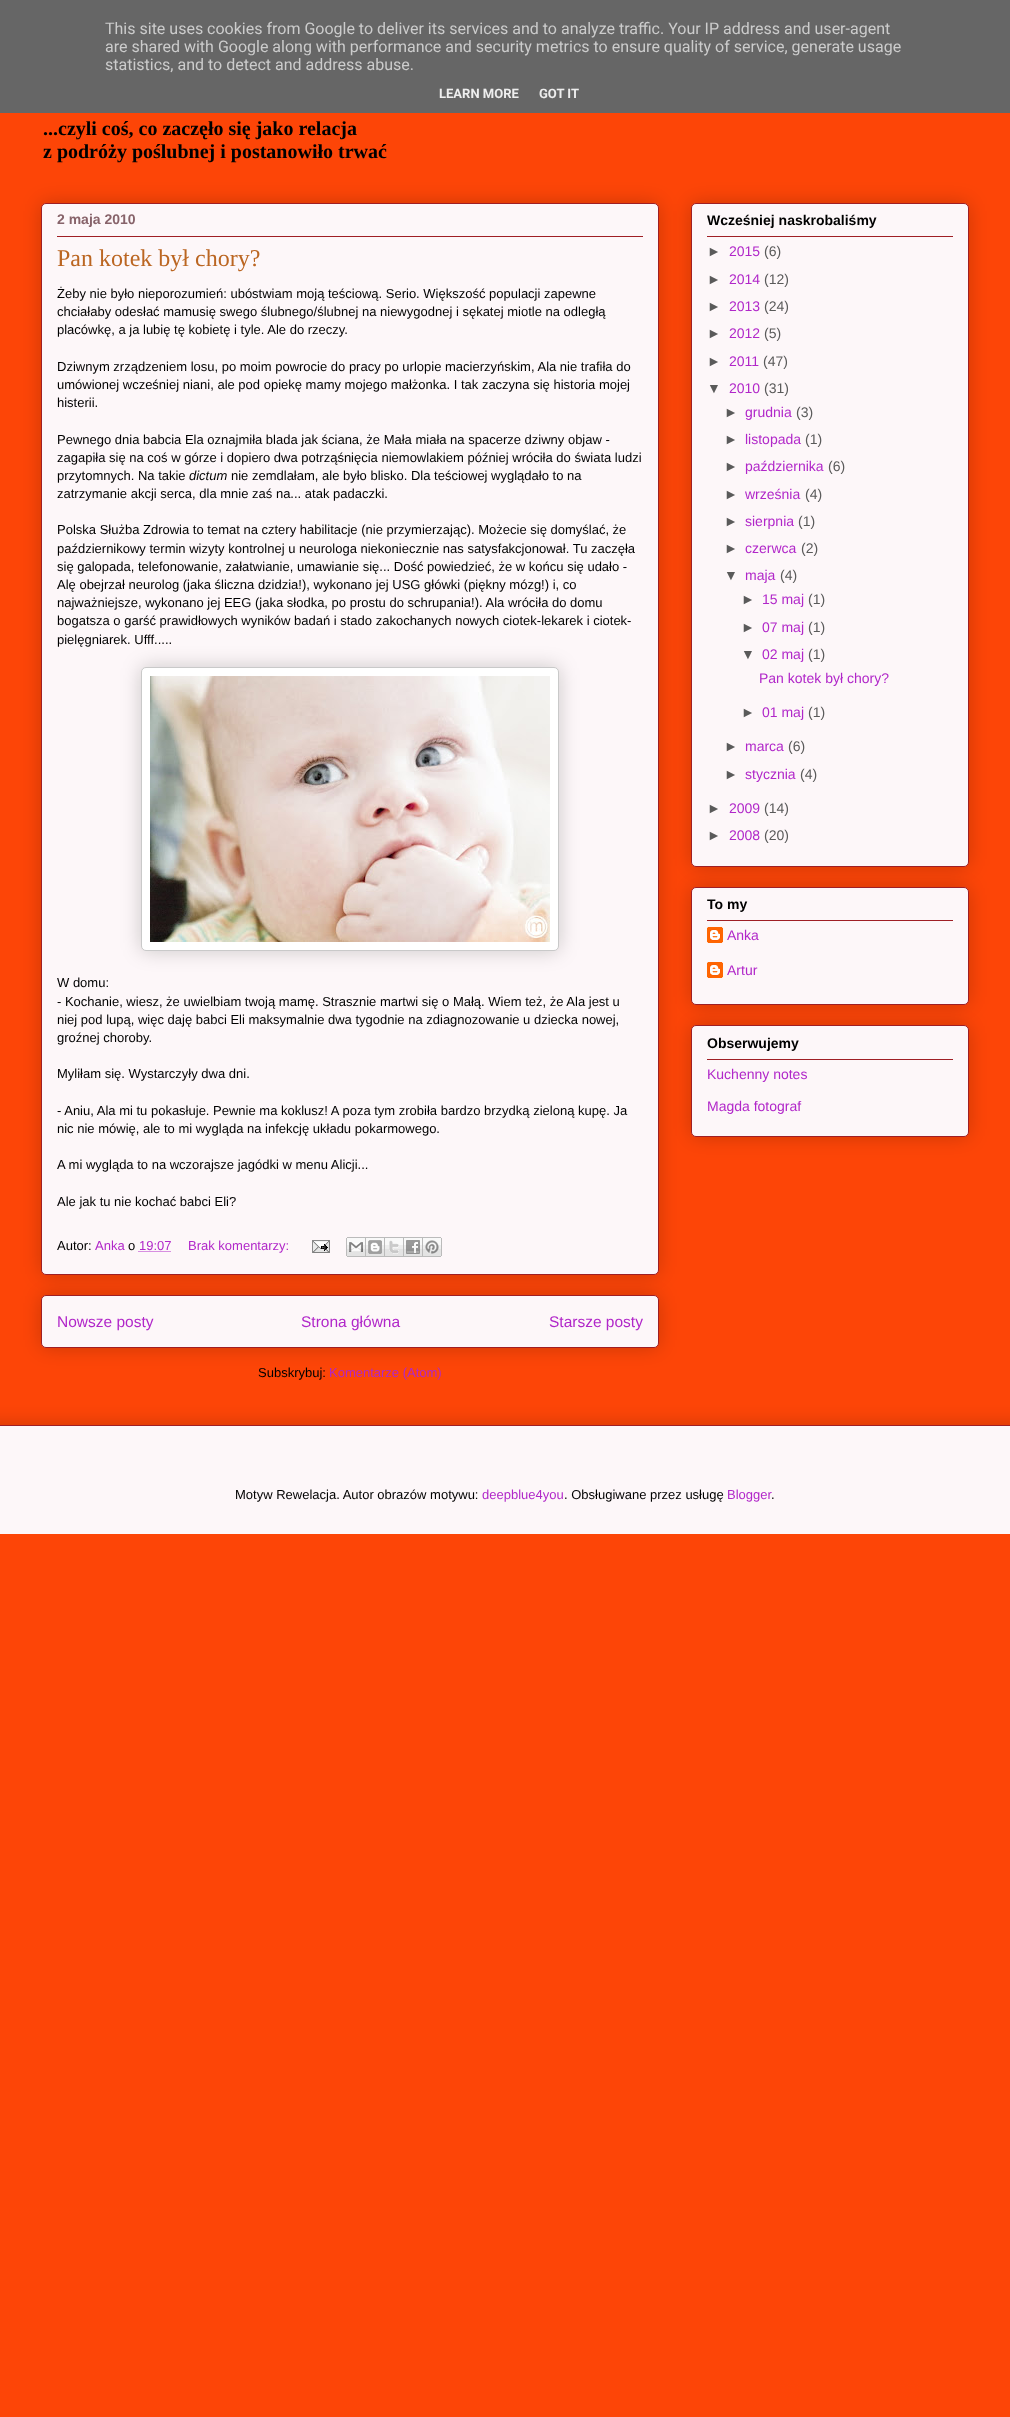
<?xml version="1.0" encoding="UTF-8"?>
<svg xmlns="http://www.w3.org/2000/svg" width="1010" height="2417">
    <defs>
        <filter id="blur1" x="-50%" y="-200%" width="200%" height="500%"><feGaussianBlur stdDeviation="10"/></filter>
        <clipPath id="clip1"><rect x="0" y="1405" width="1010" height="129"/></clipPath>
    </defs>
    <rect width="100%" height="100%" fill="#FD4507"/>
    <rect x="0" y="0" width="1010" height="113" fill="#666666"/>
    <text font-family="Roboto" font-size="16" fill="#CCCCCC">
        <tspan x="105" y="34">This site uses cookies from Google to deliver its services and to analyze traffic. Your IP address and user-agent</tspan>
        <tspan x="105" y="52">are shared with Google along with performance and security metrics to ensure quality of service, generate usage</tspan>
        <tspan x="105" y="70">statistics, and to detect and address abuse.</tspan>
    </text>
    <text x="439" y="98" font-family="Roboto" font-size="13" font-weight="700" fill="#EEEEEE">LEARN MORE</text>
    <text x="539" y="98" font-family="Roboto" font-size="13" font-weight="700" fill="#EEEEEE">GOT IT</text>
    <text font-family="Liberation Serif" font-size="20" font-weight="700" fill="#000000">
        <tspan x="43" y="135">...czyli coś, co zaczęło się jako relacja</tspan>
        <tspan x="43" y="158">z podróży poślubnej i postanowiło trwać</tspan>
    </text>
    <rect x="41" y="1295" width="618" height="53" rx="5" fill="#000000" fill-opacity="0.2" filter="url(#blur1)"/>
    <rect x="41.5" y="1295.5" width="617" height="52" rx="4.5" fill="#FDF7F9" stroke="#9F1F25"/>
    <rect x="41" y="203" width="618" height="1072" rx="5" fill="#000000" fill-opacity="0.2" filter="url(#blur1)"/>
    <rect x="41.5" y="203.5" width="617" height="1071" rx="4.5" fill="#FDF7F9" stroke="#9F1F25"/>
    <text x="57" y="224" font-family="Liberation Sans" font-size="14" font-weight="700" fill="#87636A">2 maja 2010</text>
    <rect x="57" y="236" width="586" height="1" fill="#9F1F25"/>
    <text x="57" y="266" font-family="Liberation Serif" font-size="24" fill="#BB6622">Pan kotek był chory?</text>
    <text font-family="Liberation Sans" font-size="13" fill="#000000">
        <tspan x="57" y="298">Żeby nie było nieporozumień: ubóstwiam moją teściową. Serio. Większość populacji zapewne</tspan>
        <tspan x="57" y="316">chciałaby odesłać mamusię swego ślubnego/ślubnej na niewygodnej i sękatej miotle na odległą</tspan>
        <tspan x="57" y="334">placówkę, a ja lubię tę kobietę i tyle. Ale do rzeczy.</tspan>
    </text>
    <text font-family="Liberation Sans" font-size="13" fill="#000000">
        <tspan x="57" y="371">Dziwnym zrządzeniem losu, po moim powrocie do pracy po urlopie macierzyńskim, Ala nie trafiła do</tspan>
        <tspan x="57" y="389">umówionej wcześniej niani, ale pod opiekę mamy mojego małżonka. I tak zaczyna się historia mojej</tspan>
        <tspan x="57" y="407">histerii.</tspan>
    </text>
    <text font-family="Liberation Sans" font-size="13" fill="#000000">
        <tspan x="57" y="444">Pewnego dnia babcia Ela oznajmiła blada jak ściana, że Mała miała na spacerze dziwny objaw -</tspan>
        <tspan x="57" y="462">zagapiła się na coś w górze i dopiero dwa potrząśnięcia niemowlakiem później wróciła do świata ludzi</tspan>
        <tspan x="57" y="480">przytomnych. Na takie</tspan>
    </text>
    <text x="189" y="480" font-family="Liberation Sans" font-size="13" font-style="italic" fill="#000000">dictum</text>
    <text x="231" y="480" font-family="Liberation Sans" font-size="13" fill="#000000">nie zemdlałam, ale było blisko. Dla teściowej wyglądało to na</text>
    <text x="57" y="498" font-family="Liberation Sans" font-size="13" fill="#000000">zatrzymanie akcji serca, dla mnie zaś na... atak padaczki.</text>
    <text font-family="Liberation Sans" font-size="13" fill="#000000">
        <tspan x="57" y="534">Polska Służba Zdrowia to temat na cztery habilitacje (nie przymierzając). Możecie się domyślać, że</tspan>
        <tspan x="57" y="553">październikowy termin wizyty kontrolnej u neurologa niekoniecznie nas satysfakcjonował. Tu zaczęła</tspan>
        <tspan x="57" y="571">się galopada, telefonowanie, załatwianie, umawianie się... Dość powiedzieć, że w końcu się udało -</tspan>
        <tspan x="57" y="589">Alę obejrzał neurolog (jaka śliczna dzidzia!), wykonano jej USG główki (piękny mózg!) i, co</tspan>
        <tspan x="57" y="607">najważniejsze, wykonano jej EEG (jaka słodka, po prostu do schrupania!). Ala wróciła do domu</tspan>
        <tspan x="57" y="625">bogatsza o garść prawidłowych wyników badań i stado zakochanych nowych ciotek-lekarek i ciotek-</tspan>
        <tspan x="57" y="644">pielęgniarek. Ufff.....</tspan>
    </text>
    <text x="57" y="987" font-family="Liberation Sans" font-size="13" fill="#000000">W domu:</text>
    <rect x="141" y="667" width="418" height="284" rx="5" fill="#000000" fill-opacity="0.2" filter="url(#blur1)"/>
    <rect x="141.5" y="667.5" width="417" height="283" rx="4.5" fill="#FFFFFF" stroke="#C9C9C9"/>
    <image x="150" y="676" width="400" height="266" href="img_01.png"/>
    <text font-family="Liberation Sans" font-size="13" fill="#000000">
        <tspan x="57" y="1006">- Kochanie, wiesz, że uwielbiam twoją mamę. Strasznie martwi się o Małą. Wiem też, że Ala jest u</tspan>
        <tspan x="57" y="1024">niej pod lupą, więc daję babci Eli maksymalnie dwa tygodnie na zdiagnozowanie u dziecka nowej,</tspan>
        <tspan x="57" y="1042">groźnej choroby.</tspan>
    </text>
    <text x="57" y="1078" font-family="Liberation Sans" font-size="13" fill="#000000">Myliłam się. Wystarczyły dwa dni.</text>
    <text font-family="Liberation Sans" font-size="13" fill="#000000">
        <tspan x="57" y="1115">- Aniu, Ala mi tu pokasłuje. Pewnie ma koklusz! A poza tym zrobiła bardzo brzydką zieloną kupę. Ja</tspan>
        <tspan x="57" y="1133">nic nie mówię, ale to mi wygląda na infekcję układu pokarmowego.</tspan>
    </text>
    <text x="57" y="1169" font-family="Liberation Sans" font-size="13" fill="#000000">A mi wygląda to na wczorajsze jagódki w menu Alicji...</text>
    <text x="57" y="1206" font-family="Liberation Sans" font-size="13" fill="#000000">Ale jak tu nie kochać babci Eli?</text>
    <text x="57" y="1250" font-family="Liberation Sans" font-size="13" fill="#000000">Autor:</text>
    <text x="95" y="1250" font-family="Liberation Sans" font-size="13" fill="#B127C9">Anka</text>
    <text x="128" y="1250" font-family="Liberation Sans" font-size="13" fill="#000000">o</text>
    <path d="M 138.5 1251.5 H 171" fill="none" stroke="#B127C9" stroke-dasharray="1 1"/>
    <text x="139" y="1250" font-family="Liberation Sans" font-size="13" fill="#B127C9">19:07</text>
    <text x="188" y="1250" font-family="Liberation Sans" font-size="13" fill="#B127C9">Brak komentarzy:</text>
    <image x="312" y="1240" width="18" height="13" href="img_02.png"/>
    <image x="346" y="1237" width="20" height="20" href="img_03.png"/>
    <image x="366" y="1237" width="19" height="20" href="img_04.png"/>
    <image x="385" y="1237" width="19" height="20" href="img_05.png"/>
    <image x="404" y="1237" width="19" height="20" href="img_06.png"/>
    <image x="423" y="1237" width="19" height="20" href="img_07.png"/>
    <text x="57" y="1327" font-family="Liberation Sans" font-size="15.5" fill="#B127C9">Nowsze posty</text>
    <text x="301" y="1327" font-family="Liberation Sans" font-size="15.5" fill="#B127C9">Strona główna</text>
    <text x="549" y="1327" font-family="Liberation Sans" font-size="15.5" fill="#B127C9">Starsze posty</text>
    <text x="258" y="1377" font-family="Liberation Sans" font-size="13" fill="#000000">Subskrybuj:</text>
    <text x="329" y="1377" font-family="Liberation Sans" font-size="13" fill="#B127C9">Komentarze (Atom)</text>
    <rect x="691" y="203" width="278" height="664" rx="5" fill="#000000" fill-opacity="0.2" filter="url(#blur1)"/>
    <rect x="691.5" y="203.5" width="277" height="663" rx="4.5" fill="#FDF7F9" stroke="#9F1F25"/>
    <text x="707" y="225" font-family="Liberation Sans" font-size="14" font-weight="700" fill="#000000">Wcześniej naskrobaliśmy</text>
    <rect x="707" y="236" width="246" height="1" fill="#9F1F25"/>
    <text x="707" y="256" font-family="Liberation Sans" font-size="14" fill="#5A5A5A">►</text>
    <text x="729" y="256" font-family="Liberation Sans" font-size="14" fill="#B127C9">2015</text>
    <text x="764" y="256" font-family="Liberation Sans" font-size="14" fill="#5A5A5A">(6)</text>
    <text x="707" y="284" font-family="Liberation Sans" font-size="14" fill="#5A5A5A">►</text>
    <text x="729" y="284" font-family="Liberation Sans" font-size="14" fill="#B127C9">2014</text>
    <text x="764" y="284" font-family="Liberation Sans" font-size="14" fill="#5A5A5A">(12)</text>
    <text x="707" y="311" font-family="Liberation Sans" font-size="14" fill="#5A5A5A">►</text>
    <text x="729" y="311" font-family="Liberation Sans" font-size="14" fill="#B127C9">2013</text>
    <text x="764" y="311" font-family="Liberation Sans" font-size="14" fill="#5A5A5A">(24)</text>
    <text x="707" y="338" font-family="Liberation Sans" font-size="14" fill="#5A5A5A">►</text>
    <text x="729" y="338" font-family="Liberation Sans" font-size="14" fill="#B127C9">2012</text>
    <text x="764" y="338" font-family="Liberation Sans" font-size="14" fill="#5A5A5A">(5)</text>
    <text x="707" y="366" font-family="Liberation Sans" font-size="14" fill="#5A5A5A">►</text>
    <text x="729" y="366" font-family="Liberation Sans" font-size="14" fill="#B127C9">2011</text>
    <text x="763" y="366" font-family="Liberation Sans" font-size="14" fill="#5A5A5A">(47)</text>
    <text x="707" y="393" font-family="Liberation Sans" font-size="14" fill="#5A5A5A">▼</text>
    <text x="729" y="393" font-family="Liberation Sans" font-size="14" fill="#B127C9">2010</text>
    <text x="764" y="393" font-family="Liberation Sans" font-size="14" fill="#5A5A5A">(31)</text>
    <text x="724" y="417" font-family="Liberation Sans" font-size="14" fill="#5A5A5A">►</text>
    <text x="745" y="417" font-family="Liberation Sans" font-size="14" fill="#B127C9">grudnia</text>
    <text x="796" y="417" font-family="Liberation Sans" font-size="14" fill="#5A5A5A">(3)</text>
    <text x="724" y="444" font-family="Liberation Sans" font-size="14" fill="#5A5A5A">►</text>
    <text x="745" y="444" font-family="Liberation Sans" font-size="14" fill="#B127C9">listopada</text>
    <text x="805" y="444" font-family="Liberation Sans" font-size="14" fill="#5A5A5A">(1)</text>
    <text x="724" y="471" font-family="Liberation Sans" font-size="14" fill="#5A5A5A">►</text>
    <text x="745" y="471" font-family="Liberation Sans" font-size="14" fill="#B127C9">października</text>
    <text x="828" y="471" font-family="Liberation Sans" font-size="14" fill="#5A5A5A">(6)</text>
    <text x="724" y="499" font-family="Liberation Sans" font-size="14" fill="#5A5A5A">►</text>
    <text x="745" y="499" font-family="Liberation Sans" font-size="14" fill="#B127C9">września</text>
    <text x="805" y="499" font-family="Liberation Sans" font-size="14" fill="#5A5A5A">(4)</text>
    <text x="724" y="526" font-family="Liberation Sans" font-size="14" fill="#5A5A5A">►</text>
    <text x="745" y="526" font-family="Liberation Sans" font-size="14" fill="#B127C9">sierpnia</text>
    <text x="798" y="526" font-family="Liberation Sans" font-size="14" fill="#5A5A5A">(1)</text>
    <text x="724" y="553" font-family="Liberation Sans" font-size="14" fill="#5A5A5A">►</text>
    <text x="745" y="553" font-family="Liberation Sans" font-size="14" fill="#B127C9">czerwca</text>
    <text x="801" y="553" font-family="Liberation Sans" font-size="14" fill="#5A5A5A">(2)</text>
    <text x="724" y="580" font-family="Liberation Sans" font-size="14" fill="#5A5A5A">▼</text>
    <text x="745" y="580" font-family="Liberation Sans" font-size="14" fill="#B127C9">maja</text>
    <text x="780" y="580" font-family="Liberation Sans" font-size="14" fill="#5A5A5A">(4)</text>
    <text x="741" y="604" font-family="Liberation Sans" font-size="14" fill="#5A5A5A">►</text>
    <text x="762" y="604" font-family="Liberation Sans" font-size="14" fill="#B127C9">15 maj</text>
    <text x="808" y="604" font-family="Liberation Sans" font-size="14" fill="#5A5A5A">(1)</text>
    <text x="741" y="632" font-family="Liberation Sans" font-size="14" fill="#5A5A5A">►</text>
    <text x="762" y="632" font-family="Liberation Sans" font-size="14" fill="#B127C9">07 maj</text>
    <text x="808" y="632" font-family="Liberation Sans" font-size="14" fill="#5A5A5A">(1)</text>
    <text x="741" y="659" font-family="Liberation Sans" font-size="14" fill="#5A5A5A">▼</text>
    <text x="762" y="659" font-family="Liberation Sans" font-size="14" fill="#B127C9">02 maj</text>
    <text x="808" y="659" font-family="Liberation Sans" font-size="14" fill="#5A5A5A">(1)</text>
    <text x="759" y="683" font-family="Liberation Sans" font-size="14" fill="#B127C9">Pan kotek był chory?</text>
    <text x="741" y="717" font-family="Liberation Sans" font-size="14" fill="#5A5A5A">►</text>
    <text x="762" y="717" font-family="Liberation Sans" font-size="14" fill="#B127C9">01 maj</text>
    <text x="808" y="717" font-family="Liberation Sans" font-size="14" fill="#5A5A5A">(1)</text>
    <text x="724" y="751" font-family="Liberation Sans" font-size="14" fill="#5A5A5A">►</text>
    <text x="745" y="751" font-family="Liberation Sans" font-size="14" fill="#B127C9">marca</text>
    <text x="788" y="751" font-family="Liberation Sans" font-size="14" fill="#5A5A5A">(6)</text>
    <text x="724" y="779" font-family="Liberation Sans" font-size="14" fill="#5A5A5A">►</text>
    <text x="745" y="779" font-family="Liberation Sans" font-size="14" fill="#B127C9">stycznia</text>
    <text x="800" y="779" font-family="Liberation Sans" font-size="14" fill="#5A5A5A">(4)</text>
    <text x="707" y="813" font-family="Liberation Sans" font-size="14" fill="#5A5A5A">►</text>
    <text x="729" y="813" font-family="Liberation Sans" font-size="14" fill="#B127C9">2009</text>
    <text x="764" y="813" font-family="Liberation Sans" font-size="14" fill="#5A5A5A">(14)</text>
    <text x="707" y="840" font-family="Liberation Sans" font-size="14" fill="#5A5A5A">►</text>
    <text x="729" y="840" font-family="Liberation Sans" font-size="14" fill="#B127C9">2008</text>
    <text x="764" y="840" font-family="Liberation Sans" font-size="14" fill="#5A5A5A">(20)</text>
    <rect x="691" y="887" width="278" height="118" rx="5" fill="#000000" fill-opacity="0.2" filter="url(#blur1)"/>
    <rect x="691.5" y="887.5" width="277" height="117" rx="4.5" fill="#FDF7F9" stroke="#9F1F25"/>
    <text x="707" y="909" font-family="Liberation Sans" font-size="14" font-weight="700" fill="#000000">To my</text>
    <rect x="707" y="920" width="246" height="1" fill="#9F1F25"/>
    <image x="707" y="927" width="16" height="16" href="img_08.png"/>
    <text x="727" y="940" font-family="Liberation Sans" font-size="14" fill="#B127C9">Anka</text>
    <image x="707" y="962" width="16" height="16" href="img_08.png"/>
    <text x="727" y="975" font-family="Liberation Sans" font-size="14" fill="#B127C9">Artur</text>
    <rect x="691" y="1025" width="278" height="112" rx="5" fill="#000000" fill-opacity="0.2" filter="url(#blur1)"/>
    <rect x="691.5" y="1025.5" width="277" height="111" rx="4.5" fill="#FDF7F9" stroke="#9F1F25"/>
    <text x="707" y="1048" font-family="Liberation Sans" font-size="14" font-weight="700" fill="#000000">Obserwujemy</text>
    <rect x="707" y="1059" width="246" height="1" fill="#9F1F25"/>
    <text x="707" y="1079" font-family="Liberation Sans" font-size="14" fill="#B127C9">Kuchenny notes</text>
    <text x="707" y="1111" font-family="Liberation Sans" font-size="14" fill="#B127C9">Magda fotograf</text>
    <g clip-path="url(#clip1)">
        <rect x="-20" y="1425" width="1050" height="109" fill="#000000" fill-opacity="0.2" filter="url(#blur1)"/>
    </g>
    <rect x="0" y="1426" width="1010" height="108" fill="#FDF7F9"/>
    <rect x="0" y="1425" width="1010" height="1" fill="#9F1F25"/>
    <text x="235" y="1499" font-family="Liberation Sans" font-size="13" fill="#000000">Motyw Rewelacja. Autor obrazów motywu:</text>
    <text x="482" y="1499" font-family="Liberation Sans" font-size="13" fill="#B127C9">deepblue4you</text>
    <text x="564" y="1499" font-family="Liberation Sans" font-size="13" fill="#000000">. Obsługiwane przez usługę</text>
    <text x="727" y="1499" font-family="Liberation Sans" font-size="13" fill="#B127C9">Blogger</text>
    <text x="771" y="1499" font-family="Liberation Sans" font-size="13" fill="#000000">.</text>
</svg>
